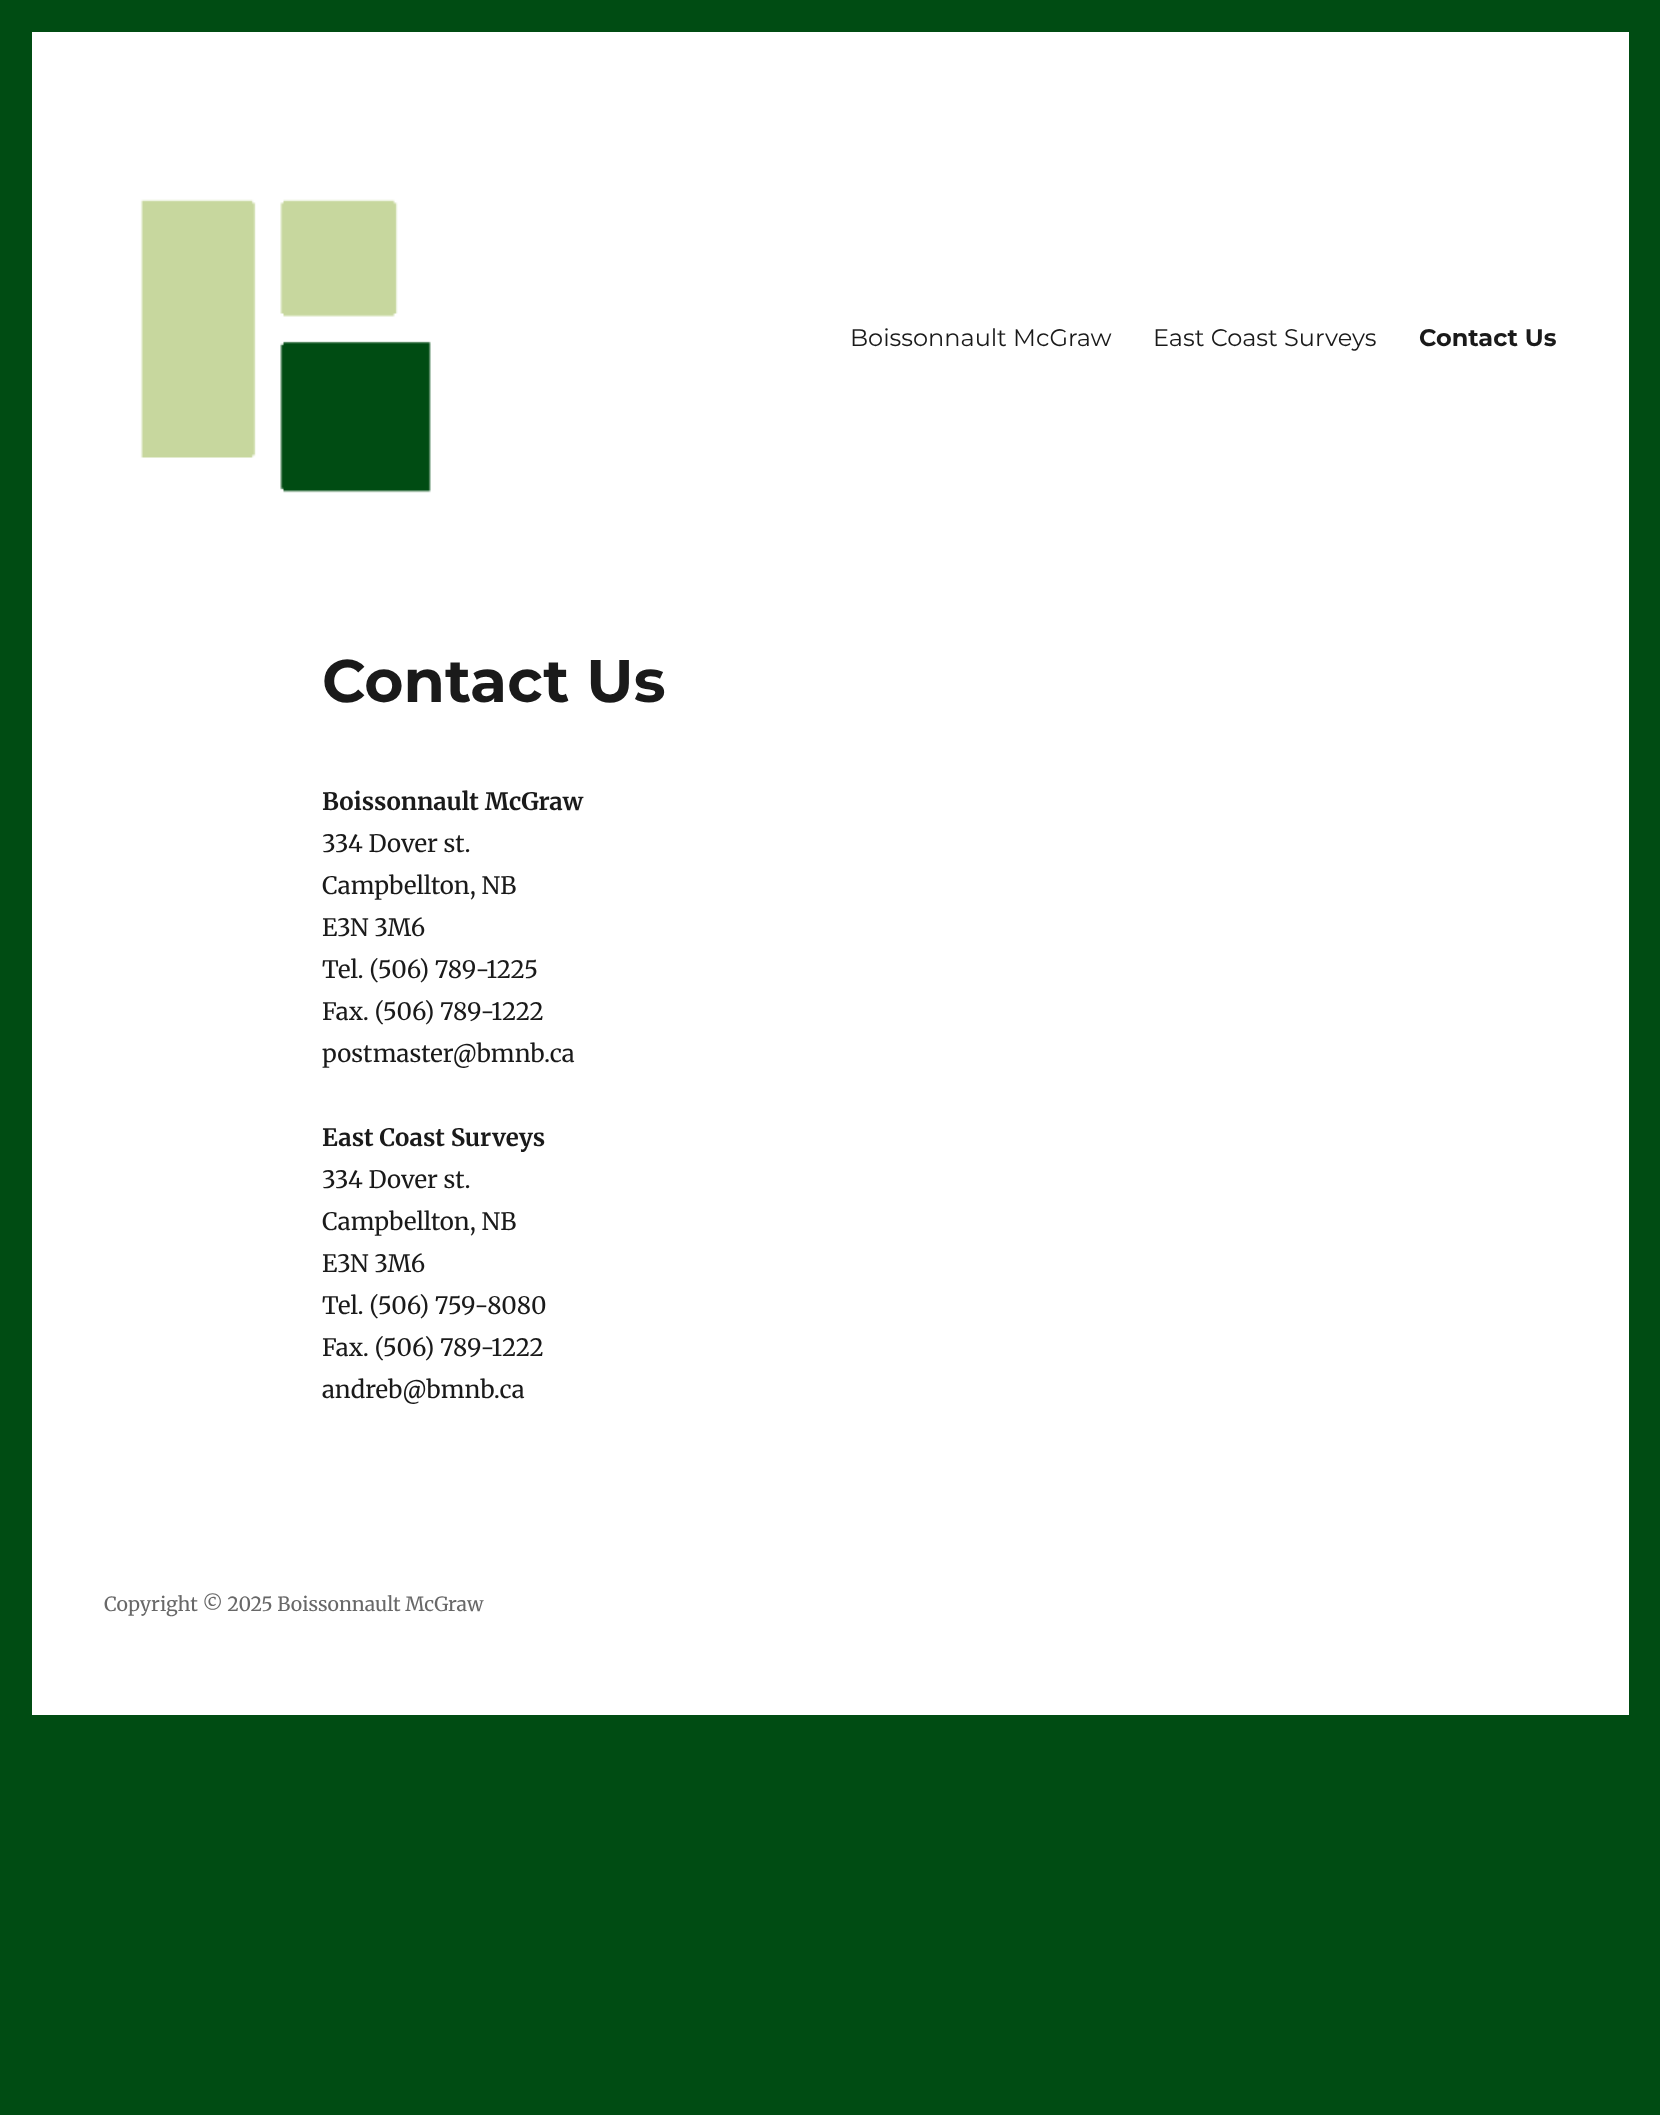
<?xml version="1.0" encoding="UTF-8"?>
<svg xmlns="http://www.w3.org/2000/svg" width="1660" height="2115">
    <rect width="100%" height="100%" fill="#004C13"/>
    <rect x="32" y="32" width="1597" height="1683" fill="#FFFFFF"/>
    <image x="140" y="199" width="291" height="294" href="img_01.png"/>
    <text x="850" y="346" font-family="Montserrat" font-size="24" fill="#1A1A1A">Boissonnault McGraw</text>
    <text x="1153" y="346" font-family="Montserrat" font-size="24" fill="#1A1A1A">East Coast Surveys</text>
    <text x="1419" y="346" font-family="Montserrat" font-size="24" font-weight="700" fill="#1A1A1A">Contact Us</text>
    <text x="322" y="702" font-family="Montserrat" font-size="60" font-weight="700" fill="#1A1A1A">Contact Us</text>
    <text x="322" y="810" font-family="Merriweather" font-size="24" font-weight="700" fill="#1A1A1A">Boissonnault McGraw</text>
    <text font-family="Merriweather" font-size="24" fill="#1A1A1A">
        <tspan x="322" y="852">334 Dover st.</tspan>
        <tspan x="322" y="894">Campbellton, NB</tspan>
        <tspan x="322" y="936">E3N 3M6</tspan>
        <tspan x="322" y="978">Tel. (506) 789-1225</tspan>
        <tspan x="322" y="1020">Fax. (506) 789-1222</tspan>
        <tspan x="322" y="1062">postmaster@bmnb.ca</tspan>
    </text>
    <text x="322" y="1146" font-family="Merriweather" font-size="24" font-weight="700" fill="#1A1A1A">East Coast Surveys</text>
    <text font-family="Merriweather" font-size="24" fill="#1A1A1A">
        <tspan x="322" y="1188">334 Dover st.</tspan>
        <tspan x="322" y="1230">Campbellton, NB</tspan>
        <tspan x="322" y="1272">E3N 3M6</tspan>
        <tspan x="322" y="1314">Tel. (506) 759-8080</tspan>
        <tspan x="322" y="1356">Fax. (506) 789-1222</tspan>
        <tspan x="322" y="1398">andreb@bmnb.ca</tspan>
    </text>
    <text x="104" y="1611" font-family="Merriweather" font-size="19.5" fill="#686868">Copyright © 2025 Boissonnault McGraw</text>
</svg>
